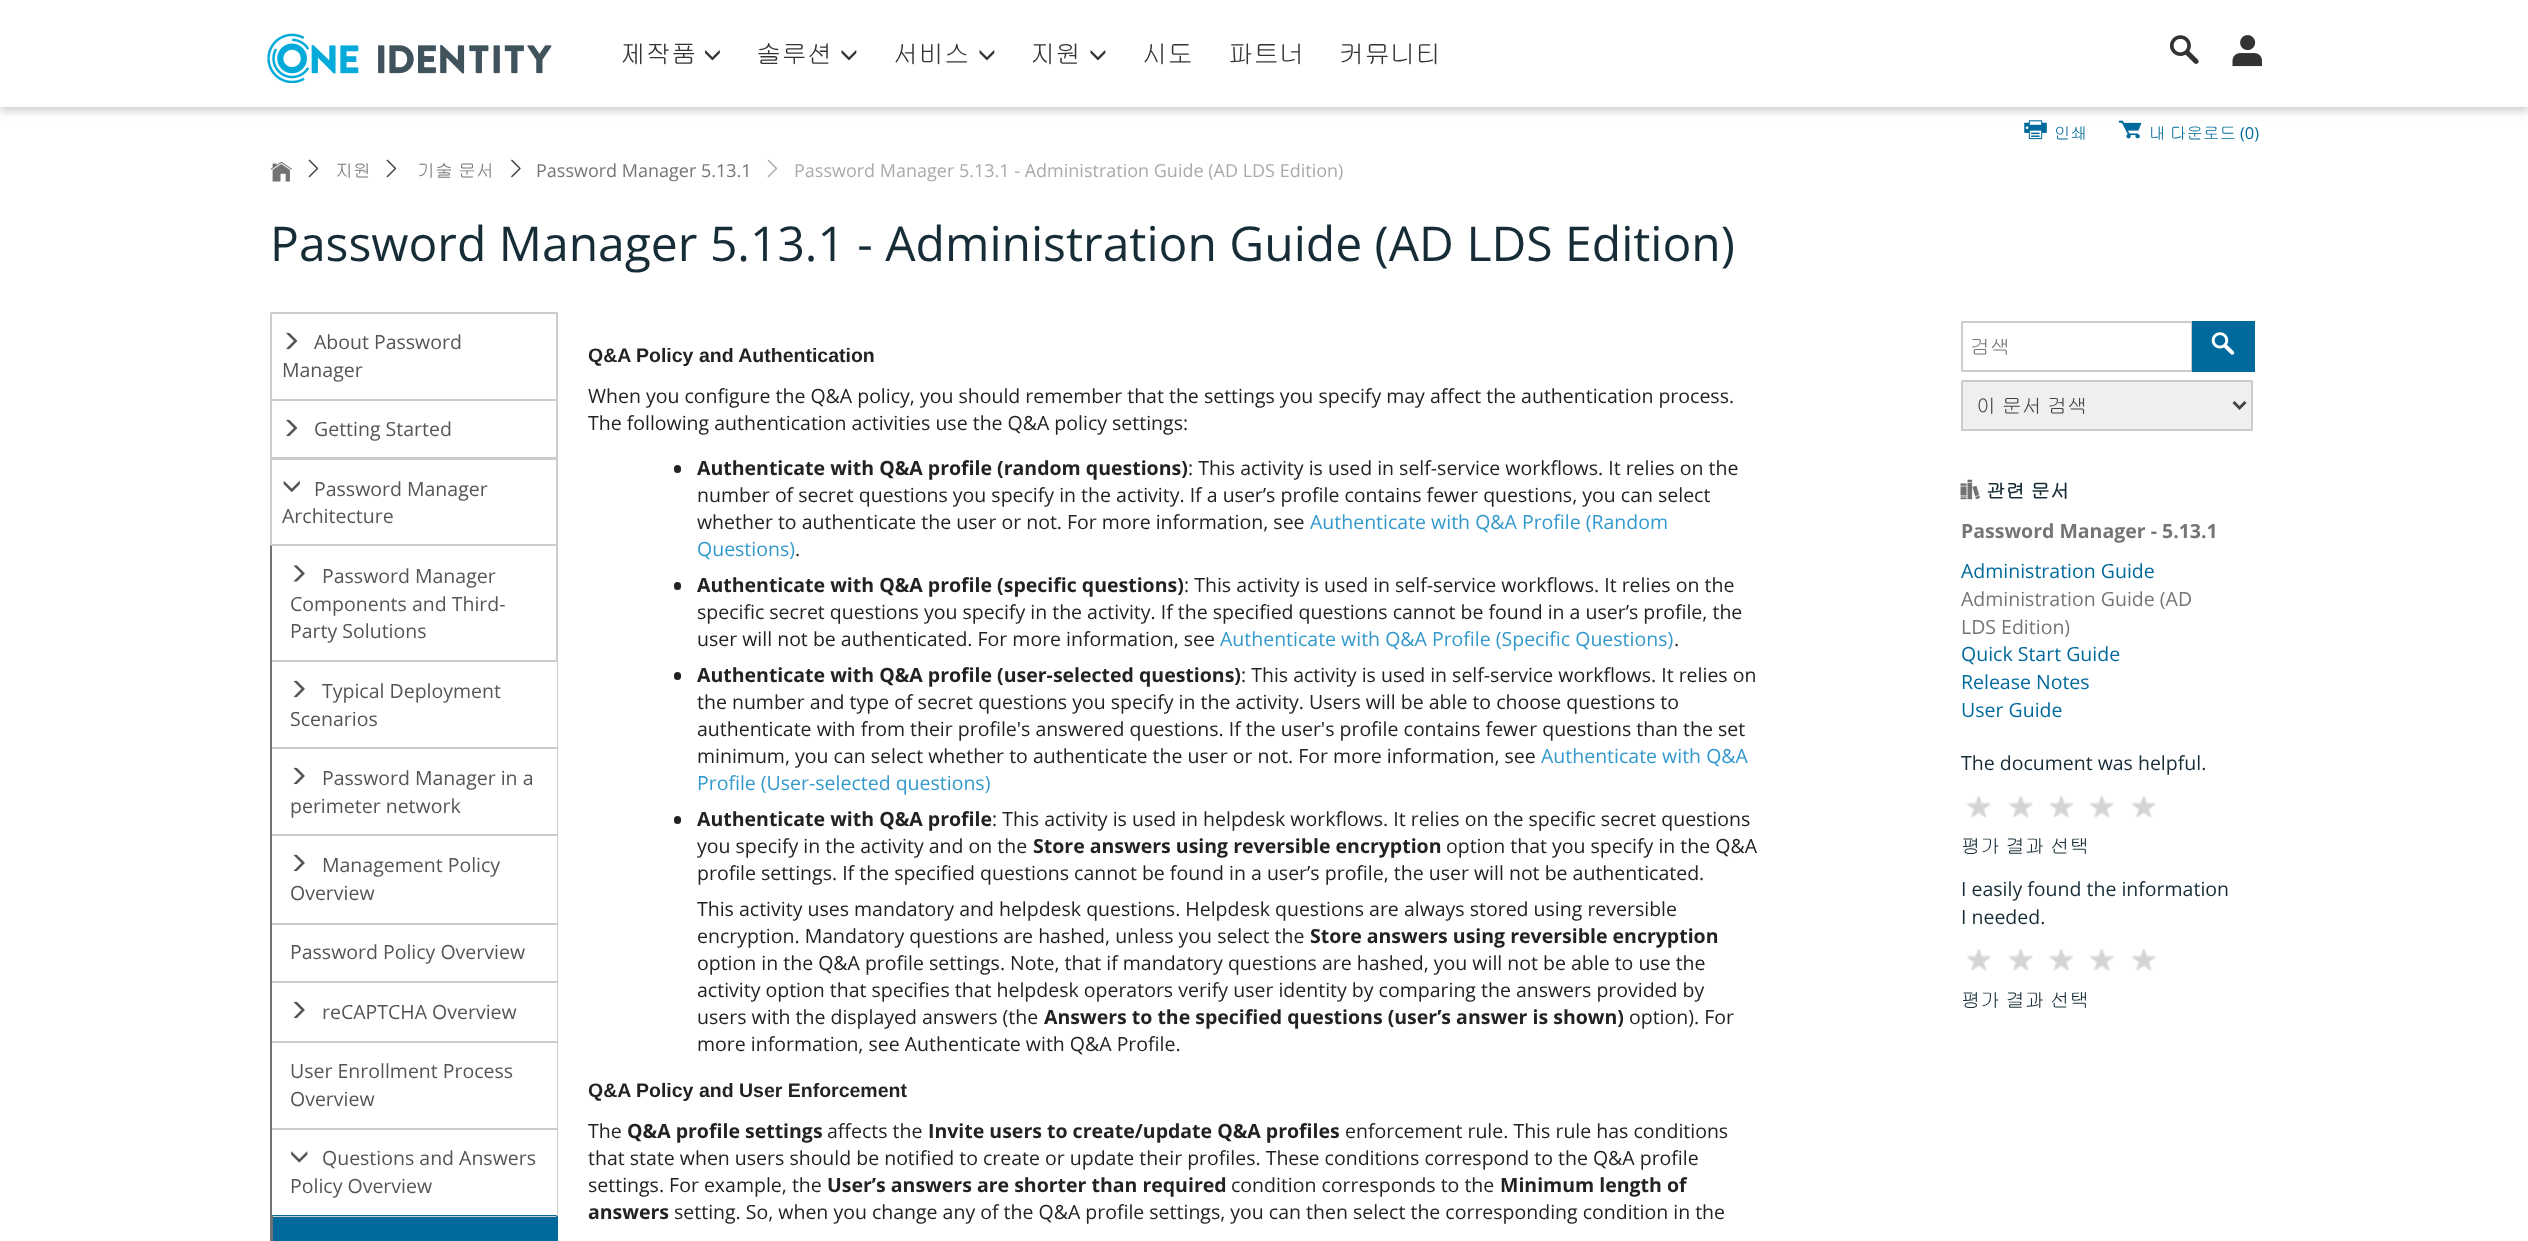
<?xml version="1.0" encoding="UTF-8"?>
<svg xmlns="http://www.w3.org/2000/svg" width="2528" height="1241">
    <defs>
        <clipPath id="clip1"><path d="M 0 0 H 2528 V 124 H 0 Z M 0 -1 H 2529 V 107 H 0 Z" clip-rule="evenodd"/></clipPath>
        <filter id="blur1" x="-50%" y="-200%" width="200%" height="500%"><feGaussianBlur stdDeviation="4"/></filter>
        <clipPath id="clip2"><rect x="270" y="545" width="288" height="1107"/></clipPath>
    </defs>
    <rect width="100%" height="100%" fill="#FFFFFF"/>
    <image x="2024" y="120" width="23" height="20" href="img_06.png"/>
    <image x="2118" y="120" width="24" height="19" href="img_07.png"/>
    <g clip-path="url(#clip1)">
        <rect x="0" y="3" width="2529" height="108" fill="#CDCDCD" filter="url(#blur1)"/>
    </g>
    <image x="267" y="33" width="285" height="50" href="img_01.png"/>
    <text x="620" y="63" font-family="Gulim" font-size="25.5" fill="#333333">제작품</text>
    <image x="705" y="50" width="15" height="11" href="img_02.png"/>
    <text x="756" y="63" font-family="Gulim" font-size="25.5" fill="#333333">솔루션</text>
    <image x="841" y="50" width="16" height="11" href="img_03.png"/>
    <text x="893" y="63" font-family="Gulim" font-size="25.5" fill="#333333">서비스</text>
    <image x="979" y="50" width="16" height="11" href="img_03.png"/>
    <text x="1030" y="63" font-family="Gulim" font-size="25.5" fill="#333333">지원</text>
    <image x="1090" y="50" width="16" height="11" href="img_03.png"/>
    <text x="1142" y="63" font-family="Gulim" font-size="25.5" fill="#333333">시도</text>
    <text x="1228" y="63" font-family="Gulim" font-size="25.5" fill="#333333">파트너</text>
    <text x="1339" y="63" font-family="Gulim" font-size="25.5" fill="#333333">커뮤니티</text>
    <image x="2169" y="35" width="30" height="29" href="img_04.png"/>
    <image x="2232" y="35" width="30" height="32" href="img_05.png"/>
    <text x="2054" y="139" font-family="Gulim" font-size="16.5" fill="#016A9C">인쇄</text>
    <text x="2149" y="139" word-spacing="-1" font-family="Gulim" font-size="16.5" fill="#016A9C">내 다운로드</text>
    <text x="2240" y="139" font-family="Open Sans" font-size="16.5" fill="#016A9C">(0)</text>
    <image x="270" y="161" width="22" height="21" href="img_08.png"/>
    <image x="308" y="159" width="11" height="19" href="img_09.png"/>
    <text x="335" y="177" font-family="Gulim" font-size="18" fill="#757575">지원</text>
    <image x="386" y="159" width="11" height="19" href="img_09.png"/>
    <text x="417" y="177" word-spacing="-1" font-family="Gulim" font-size="18" fill="#757575">기술 문서</text>
    <image x="511" y="159" width="10" height="19" href="img_10.png"/>
    <text x="536" y="177" font-family="Open Sans" font-size="18" fill="#757575">Password Manager 5.13.1</text>
    <image x="767" y="159" width="11" height="19" href="img_11.png"/>
    <text x="794" y="177" font-family="Open Sans" font-size="18" fill="#AAAAAA">Password Manager 5.13.1 - Administration Guide (AD LDS Edition)</text>
    <text x="270" y="261" font-family="Open Sans" font-size="48" fill="#162C36">Password Manager 5.13.1 - Administration Guide (AD LDS Edition)</text>
    <path d="M 271.5 313 H 556.5 C 557 313 557 313 557 313.5 V 400 H 271 V 313.5 C 271 313 271 313 271.5 313 Z" fill="none" stroke="#CCCCCC" stroke-width="2"/>
    <image x="286" y="332" width="12" height="18" href="img_12.png"/>
    <text x="314" y="349" font-family="Open Sans" font-size="19.5" fill="#555555">About Password</text>
    <text x="282" y="377" font-family="Open Sans" font-size="19.5" fill="#555555">Manager</text>
    <rect x="271" y="400" width="286" height="58" fill="none" stroke="#CCCCCC" stroke-width="2"/>
    <image x="286" y="419" width="12" height="18" href="img_12.png"/>
    <text x="314" y="436" font-family="Open Sans" font-size="19.5" fill="#555555">Getting Started</text>
    <rect x="271" y="459" width="286" height="86" fill="none" stroke="#CCCCCC" stroke-width="2"/>
    <image x="283" y="481" width="17" height="11" href="img_13.png"/>
    <text x="314" y="496" font-family="Open Sans" font-size="19.5" fill="#555555">Password Manager</text>
    <text x="282" y="523" font-family="Open Sans" font-size="19.5" fill="#555555">Architecture</text>
    <path d="M 271.5 545 H 556.5 C 557.5 545 558 545.5 558 546.5 V 662 H 270 V 546.5 C 270 545.5 270.5 545 271.5 545 Z" fill="#FFFFFF"/>
    <g clip-path="url(#clip2)">
        <path d="M 272 546 L 270 545 L 271 544 H 557 L 558 545 L 556 546 Z" fill="#CCCCCC"/>
        <path d="M 558 662 C 558 650 559 546 558 545 L 556 546 V 660 Z" fill="#CCCCCC"/>
    </g>
    <path d="M 270 662 L 272 660 V 546 L 270 545 V 546 Z" fill="#737373"/>
    <image x="293" y="565" width="12" height="17" href="img_14.png"/>
    <text x="322" y="583" font-family="Open Sans" font-size="19.5" fill="#555555">Password Manager</text>
    <text font-family="Open Sans" font-size="19.5" fill="#555555">
        <tspan x="290" y="611">Components and Third-</tspan>
        <tspan x="290" y="638">Party Solutions</tspan>
    </text>
    <rect x="270" y="660" width="288" height="2" fill="#CCCCCC"/>
    <rect x="557" y="660" width="1" height="89" fill="#CCCCCC"/>
    <rect x="270" y="660" width="2" height="89" fill="#737373"/>
    <image x="293" y="680" width="12" height="18" href="img_15.png"/>
    <text x="322" y="698" font-family="Open Sans" font-size="19.5" fill="#555555">Typical Deployment</text>
    <text x="290" y="726" font-family="Open Sans" font-size="19.5" fill="#555555">Scenarios</text>
    <rect x="270" y="747" width="288" height="2" fill="#CCCCCC"/>
    <rect x="557" y="747" width="1" height="89" fill="#CCCCCC"/>
    <rect x="270" y="747" width="2" height="89" fill="#737373"/>
    <image x="293" y="767" width="12" height="18" href="img_15.png"/>
    <text x="322" y="785" font-family="Open Sans" font-size="19.5" fill="#555555">Password Manager in a</text>
    <text x="290" y="813" font-family="Open Sans" font-size="19.5" fill="#555555">perimeter network</text>
    <rect x="270" y="834" width="288" height="2" fill="#CCCCCC"/>
    <rect x="557" y="834" width="1" height="90" fill="#CCCCCC"/>
    <rect x="270" y="834" width="2" height="90" fill="#737373"/>
    <image x="293" y="854" width="12" height="18" href="img_15.png"/>
    <text x="322" y="872" font-family="Open Sans" font-size="19.5" fill="#555555">Management Policy</text>
    <text x="290" y="900" font-family="Open Sans" font-size="19.5" fill="#555555">Overview</text>
    <rect x="270" y="923" width="288" height="2" fill="#CCCCCC"/>
    <rect x="557" y="923" width="1" height="60" fill="#CCCCCC"/>
    <rect x="270" y="923" width="2" height="60" fill="#737373"/>
    <text x="290" y="959" font-family="Open Sans" font-size="19.5" fill="#555555">Password Policy Overview</text>
    <rect x="270" y="981" width="288" height="2" fill="#CCCCCC"/>
    <rect x="557" y="981" width="1" height="62" fill="#CCCCCC"/>
    <rect x="270" y="981" width="2" height="62" fill="#737373"/>
    <image x="293" y="1001" width="12" height="18" href="img_15.png"/>
    <text x="322" y="1019" font-family="Open Sans" font-size="19.5" fill="#555555">reCAPTCHA Overview</text>
    <rect x="270" y="1041" width="288" height="2" fill="#CCCCCC"/>
    <rect x="557" y="1041" width="1" height="89" fill="#CCCCCC"/>
    <rect x="270" y="1041" width="2" height="89" fill="#737373"/>
    <text font-family="Open Sans" font-size="19.5" fill="#555555">
        <tspan x="290" y="1078">User Enrollment Process</tspan>
        <tspan x="290" y="1106">Overview</tspan>
    </text>
    <rect x="270" y="1128" width="288" height="2" fill="#CCCCCC"/>
    <rect x="557" y="1128" width="1" height="89" fill="#CCCCCC"/>
    <rect x="270" y="1215" width="288" height="2" fill="#CCCCCC"/>
    <rect x="270" y="1128" width="2" height="89" fill="#737373"/>
    <image x="291" y="1151" width="17" height="12" href="img_16.png"/>
    <text x="322" y="1165" font-family="Open Sans" font-size="19.5" fill="#555555">Questions and Answers</text>
    <text x="290" y="1193" font-family="Open Sans" font-size="19.5" fill="#555555">Policy Overview</text>
    <rect x="273" y="1217" width="283" height="24" fill="#016A9C"/>
    <path d="M 272 1215 H 271 L 273 1216 H 556 V 1217 L 557 1216 L 556 1215 Z" fill="#016A9C"/>
    <path d="M 558 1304 V 1216 H 557 L 556 1217 V 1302 Z" fill="#016A9C"/>
    <path d="M 270 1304 L 273 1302 V 1216 L 271 1215 L 270 1216 Z" fill="#737373"/>
    <text x="588" y="362" font-family="Liberation Sans" font-size="19.5" font-weight="700" fill="#222222">Q&amp;A Policy and Authentication</text>
    <text font-family="Open Sans" font-size="19.5" fill="#222222">
        <tspan x="588" y="403">When you configure the Q&amp;A policy, you should remember that the settings you specify may affect the authentication process.</tspan>
        <tspan x="588" y="430">The following authentication activities use the Q&amp;A policy settings:</tspan>
    </text>
    <rect x="674" y="465" width="7" height="8" rx="3.5" fill="#222222"/>
    <text x="697" y="475" font-family="Open Sans" font-size="19.5" font-weight="700" fill="#222222">Authenticate with Q&amp;A profile (random questions)</text>
    <text x="1188" y="475" font-family="Open Sans" font-size="19.5" fill="#222222">: This activity is used in self-service workflows. It relies on the</text>
    <text font-family="Open Sans" font-size="19.5" fill="#222222">
        <tspan x="697" y="502">number of secret questions you specify in the activity. If a user’s profile contains fewer questions, you can select</tspan>
        <tspan x="697" y="529">whether to authenticate the user or not. For more information, see</tspan>
    </text>
    <text x="1310" y="529" font-family="Open Sans" font-size="19.5" fill="#3399CC">Authenticate with Q&amp;A Profile (Random</text>
    <text x="697" y="556" font-family="Open Sans" font-size="19.5" fill="#3399CC">Questions)</text>
    <text x="795" y="556" font-family="Open Sans" font-size="19.5" fill="#222222">.</text>
    <rect x="674" y="582" width="7" height="8" rx="3.5" fill="#222222"/>
    <text x="697" y="592" font-family="Open Sans" font-size="19.5" font-weight="700" fill="#222222">Authenticate with Q&amp;A profile (specific questions)</text>
    <text x="1184" y="592" font-family="Open Sans" font-size="19.5" fill="#222222">: This activity is used in self-service workflows. It relies on the</text>
    <text font-family="Open Sans" font-size="19.5" fill="#222222">
        <tspan x="697" y="619">specific secret questions you specify in the activity. If the specified questions cannot be found in a user’s profile, the</tspan>
        <tspan x="697" y="646">user will not be authenticated. For more information, see</tspan>
    </text>
    <text x="1220" y="646" font-family="Open Sans" font-size="19.5" fill="#3399CC">Authenticate with Q&amp;A Profile (Specific Questions)</text>
    <text x="1674" y="646" font-family="Open Sans" font-size="19.5" fill="#222222">.</text>
    <rect x="674" y="672" width="7" height="8" rx="3.5" fill="#222222"/>
    <text x="697" y="682" font-family="Open Sans" font-size="19.5" font-weight="700" fill="#222222">Authenticate with Q&amp;A profile (user-selected questions)</text>
    <text x="1241" y="682" font-family="Open Sans" font-size="19.5" fill="#222222">: This activity is used in self-service workflows. It relies on</text>
    <text font-family="Open Sans" font-size="19.5" fill="#222222">
        <tspan x="697" y="709">the number and type of secret questions you specify in the activity. Users will be able to choose questions to</tspan>
        <tspan x="697" y="736">authenticate with from their profile's answered questions. If the user's profile contains fewer questions than the set</tspan>
        <tspan x="697" y="763">minimum, you can select whether to authenticate the user or not. For more information, see</tspan>
    </text>
    <text x="1541" y="763" font-family="Open Sans" font-size="19.5" fill="#3399CC">Authenticate with Q&amp;A</text>
    <text x="697" y="790" font-family="Open Sans" font-size="19.5" fill="#3399CC">Profile (User-selected questions)</text>
    <rect x="674" y="816" width="7" height="8" rx="3.5" fill="#222222"/>
    <text x="697" y="826" font-family="Open Sans" font-size="19.5" font-weight="700" fill="#222222">Authenticate with Q&amp;A profile</text>
    <text x="992" y="826" font-family="Open Sans" font-size="19.5" fill="#222222">: This activity is used in helpdesk workflows. It relies on the specific secret questions</text>
    <text x="697" y="853" font-family="Open Sans" font-size="19.5" fill="#222222">you specify in the activity and on the</text>
    <text x="1033" y="853" font-family="Open Sans" font-size="19.5" font-weight="700" fill="#222222">Store answers using reversible encryption</text>
    <text x="1446" y="853" font-family="Open Sans" font-size="19.5" fill="#222222">option that you specify in the Q&amp;A</text>
    <text font-family="Open Sans" font-size="19.5" fill="#222222">
        <tspan x="697" y="880">profile settings. If the specified questions cannot be found in a user’s profile, the user will not be authenticated.</tspan>
        <tspan x="697" y="916">This activity uses mandatory and helpdesk questions. Helpdesk questions are always stored using reversible</tspan>
        <tspan x="697" y="943">encryption. Mandatory questions are hashed, unless you select the</tspan>
    </text>
    <text x="1310" y="943" font-family="Open Sans" font-size="19.5" font-weight="700" fill="#222222">Store answers using reversible encryption</text>
    <text font-family="Open Sans" font-size="19.5" fill="#222222">
        <tspan x="697" y="970">option in the Q&amp;A profile settings. Note, that if mandatory questions are hashed, you will not be able to use the</tspan>
        <tspan x="697" y="997">activity option that specifies that helpdesk operators verify user identity by comparing the answers provided by</tspan>
        <tspan x="697" y="1024">users with the displayed answers (the</tspan>
    </text>
    <text x="1044" y="1024" font-family="Open Sans" font-size="19.5" font-weight="700" fill="#222222">Answers to the specified questions (user’s answer is shown)</text>
    <text x="1629" y="1024" font-family="Open Sans" font-size="19.5" fill="#222222">option). For</text>
    <text x="697" y="1051" font-family="Open Sans" font-size="19.5" fill="#222222">more information, see Authenticate with Q&amp;A Profile.</text>
    <text x="588" y="1097" font-family="Liberation Sans" font-size="19.5" font-weight="700" fill="#222222">Q&amp;A Policy and User Enforcement</text>
    <text x="588" y="1138" font-family="Open Sans" font-size="19.5" fill="#222222">The</text>
    <text x="627" y="1138" font-family="Open Sans" font-size="19.5" font-weight="700" fill="#222222">Q&amp;A profile settings</text>
    <text x="827" y="1138" font-family="Open Sans" font-size="19.5" fill="#222222">affects the</text>
    <text x="928" y="1138" font-family="Open Sans" font-size="19.5" font-weight="700" fill="#222222">Invite users to create/update Q&amp;A profiles</text>
    <text x="1345" y="1138" font-family="Open Sans" font-size="19.5" fill="#222222">enforcement rule. This rule has conditions</text>
    <text font-family="Open Sans" font-size="19.5" fill="#222222">
        <tspan x="588" y="1165">that state when users should be notified to create or update their profiles. These conditions correspond to the Q&amp;A profile</tspan>
        <tspan x="588" y="1192">settings. For example, the</tspan>
    </text>
    <text x="827" y="1192" font-family="Open Sans" font-size="19.5" font-weight="700" fill="#222222">User’s answers are shorter than required</text>
    <text x="1231" y="1192" font-family="Open Sans" font-size="19.5" fill="#222222">condition corresponds to the</text>
    <text x="1500" y="1192" font-family="Open Sans" font-size="19.5" font-weight="700" fill="#222222">Minimum length of</text>
    <text x="588" y="1219" font-family="Open Sans" font-size="19.5" font-weight="700" fill="#222222">answers</text>
    <text x="674" y="1219" font-family="Open Sans" font-size="19.5" fill="#222222">setting. So, when you change any of the Q&amp;A profile settings, you can then select the corresponding condition in the</text>
    <rect x="1962" y="322" width="230" height="49" rx="0.5" fill="none" stroke="#CCCCCC" stroke-width="2"/>
    <text x="1970" y="354" font-family="Gulim" font-size="20" fill="#757575">검색</text>
    <rect x="2192" y="321" width="63" height="51" fill="#016A9C"/>
    <image x="2211" y="332" width="24" height="23" href="img_17.png"/>
    <rect x="1962" y="381" width="290" height="49" rx="0.5" fill="#EFEFEF" stroke="#CCCCCC" stroke-width="2"/>
    <path d="M 2233.5 402 L 2239.5 408 L 2245.5 402" fill="none" stroke="#444444" stroke-width="3"/>
    <text x="1976" y="413" word-spacing="-1" font-family="Gulim" font-size="20" fill="#444444">이 문서 검색</text>
    <image x="1960" y="479" width="20" height="21" href="img_18.png"/>
    <text x="1986" y="498" word-spacing="-1" font-family="Gulim" font-size="19.5" font-weight="700" fill="#162C36">관련 문서</text>
    <text x="1961" y="538" font-family="Open Sans" font-size="19.5" font-weight="700" fill="#757575">Password Manager - 5.13.1</text>
    <text x="1961" y="578" font-family="Open Sans" font-size="19.5" fill="#016A9C">Administration Guide</text>
    <text font-family="Open Sans" font-size="19.5" fill="#757575">
        <tspan x="1961" y="606">Administration Guide (AD</tspan>
        <tspan x="1961" y="634">LDS Edition)</tspan>
    </text>
    <text font-family="Open Sans" font-size="19.5" fill="#016A9C">
        <tspan x="1961" y="661">Quick Start Guide</tspan>
        <tspan x="1961" y="689">Release Notes</tspan>
        <tspan x="1961" y="717">User Guide</tspan>
    </text>
    <text x="1961" y="770" font-family="Open Sans" font-size="19.5" fill="#162C36">The document was helpful.</text>
    <image x="1966" y="796" width="25" height="22" href="img_19.png"/>
    <image x="2008" y="796" width="25" height="22" href="img_20.png"/>
    <image x="2049" y="796" width="25" height="22" href="img_21.png"/>
    <image x="2089" y="796" width="25" height="22" href="img_19.png"/>
    <image x="2131" y="796" width="25" height="22" href="img_19.png"/>
    <text x="1961" y="853" word-spacing="-1" font-family="Gulim" font-size="19.5" fill="#162C36">평가 결과 선택</text>
    <text font-family="Open Sans" font-size="19.5" fill="#162C36">
        <tspan x="1961" y="896">I easily found the information</tspan>
        <tspan x="1961" y="924">I needed.</tspan>
    </text>
    <image x="1966" y="949" width="25" height="22" href="img_19.png"/>
    <image x="2008" y="949" width="25" height="22" href="img_20.png"/>
    <image x="2049" y="949" width="25" height="22" href="img_21.png"/>
    <image x="2089" y="949" width="25" height="22" href="img_19.png"/>
    <image x="2131" y="949" width="25" height="22" href="img_19.png"/>
    <text x="1961" y="1007" word-spacing="-1" font-family="Gulim" font-size="19.5" fill="#162C36">평가 결과 선택</text>
</svg>
